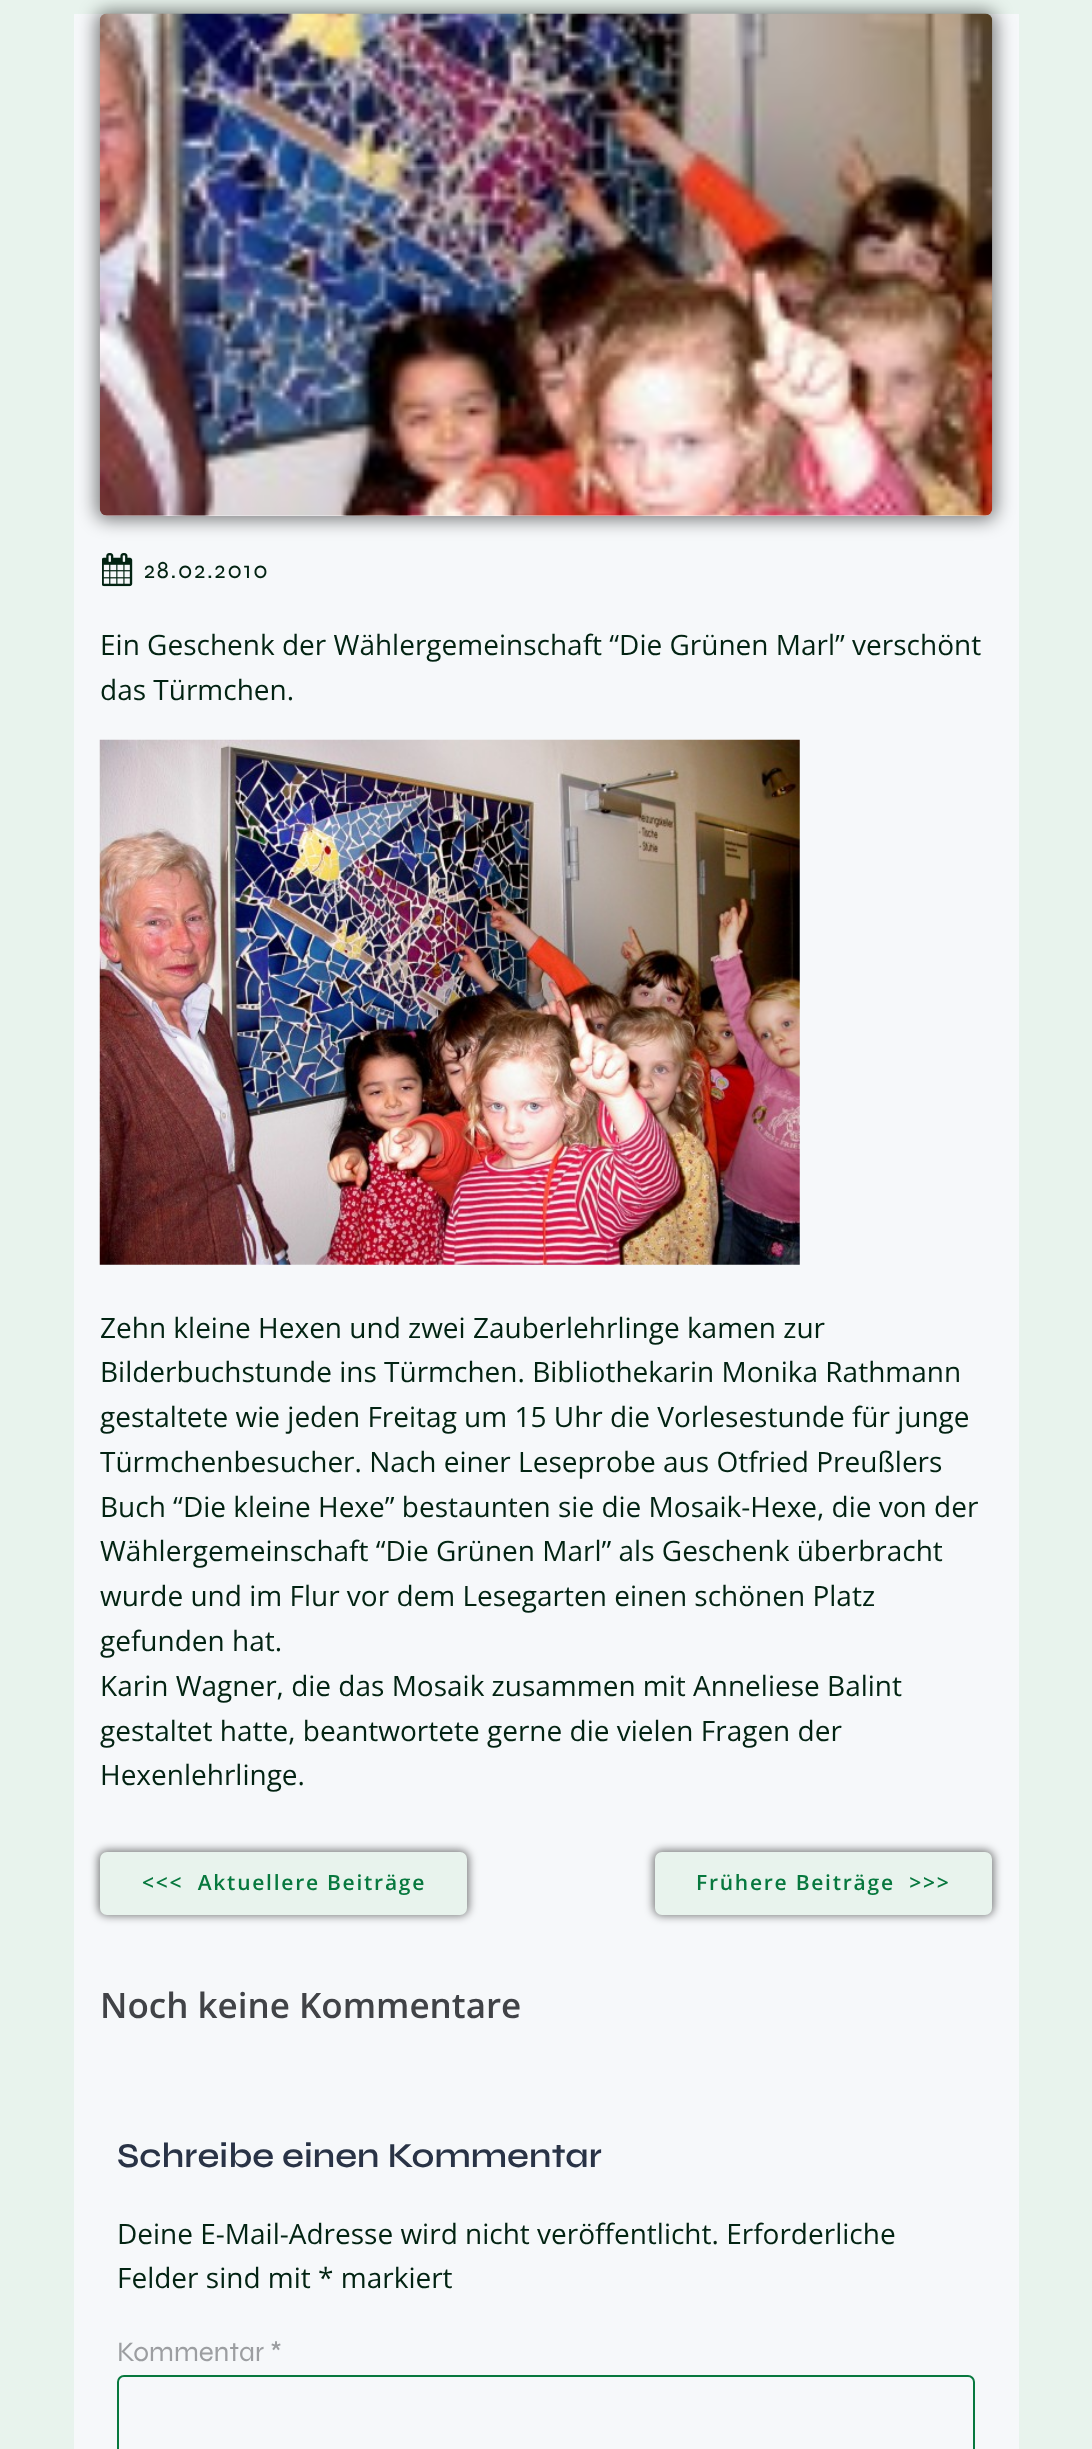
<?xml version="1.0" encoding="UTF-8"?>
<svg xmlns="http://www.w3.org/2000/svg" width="1092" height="2449">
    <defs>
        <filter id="blur1" x="-50%" y="-200%" width="200%" height="500%"><feGaussianBlur stdDeviation="9"/></filter>
        <filter id="blur2" x="-50%" y="-200%" width="200%" height="500%"><feGaussianBlur stdDeviation="4.5"/></filter>
    </defs>
    <rect width="100%" height="100%" fill="#E8F3ED"/>
    <rect x="74" y="14" width="945" height="2435" fill="#F6F8FA"/>
    <rect x="96" y="11" width="900" height="509" rx="11" fill="#000000" fill-opacity="0.5" filter="url(#blur1)"/>
    <rect x="100" y="14" width="892" height="502" rx="7" fill="#F6F8FA"/>
    <image x="99" y="13" width="894" height="503" href="img_01.png"/>
    <image x="102" y="553" width="31" height="34" href="img_02.png"/>
    <text x="144" y="578" font-family="Syne" font-size="24.5" letter-spacing="1.75" fill="#022312">28.02.2010</text>
    <text font-family="Open Sans" font-size="28" fill="#022312">
        <tspan x="100" y="655">Ein Geschenk der Wählergemeinschaft “Die Grünen Marl” verschönt</tspan>
        <tspan x="100" y="700">das Türmchen.</tspan>
    </text>
    <image x="99" y="739" width="701" height="526" href="img_03.png"/>
    <text font-family="Open Sans" font-size="28" fill="#022312">
        <tspan x="100" y="1338">Zehn kleine Hexen und zwei Zauberlehrlinge kamen zur</tspan>
        <tspan x="100" y="1382">Bilderbuchstunde ins Türmchen. Bibliothekarin Monika Rathmann</tspan>
        <tspan x="100" y="1427">gestaltete wie jeden Freitag um 15 Uhr die Vorlesestunde für junge</tspan>
        <tspan x="100" y="1472">Türmchenbesucher. Nach einer Leseprobe aus Otfried Preußlers</tspan>
        <tspan x="100" y="1517">Buch “Die kleine Hexe” bestaunten sie die Mosaik-Hexe, die von der</tspan>
        <tspan x="100" y="1561">Wählergemeinschaft “Die Grünen Marl” als Geschenk überbracht</tspan>
        <tspan x="100" y="1606">wurde und im Flur vor dem Lesegarten einen schönen Platz</tspan>
        <tspan x="100" y="1651">gefunden hat.</tspan>
        <tspan x="100" y="1696">Karin Wagner, die das Mosaik zusammen mit Anneliese Balint</tspan>
        <tspan x="100" y="1741">gestaltet hatte, beantwortete gerne die vielen Fragen der</tspan>
        <tspan x="100" y="1785">Hexenlehrlinge.</tspan>
    </text>
    <rect x="98" y="1850" width="371" height="66" rx="9" fill="#000000" fill-opacity="0.5" filter="url(#blur2)"/>
    <rect x="100" y="1852" width="367" height="63" rx="7" fill="#E8F3ED"/>
    <text x="142" y="1890" font-family="Open Sans" font-size="21" font-weight="600" letter-spacing="1.75" fill="#07783E" xml:space="preserve">&lt;&lt;&lt;  Aktuellere Beiträge</text>
    <rect x="653" y="1850" width="341" height="66" rx="9" fill="#000000" fill-opacity="0.5" filter="url(#blur2)"/>
    <rect x="655" y="1852" width="337" height="63" rx="7" fill="#E8F3ED"/>
    <text x="696" y="1890" font-family="Open Sans" font-size="21" font-weight="600" letter-spacing="1.75" fill="#07783E" xml:space="preserve">Frühere Beiträge  &gt;&gt;&gt;</text>
    <text x="100" y="2018" font-family="Open Sans" font-size="35" font-weight="600" fill="#414347">Noch keine Kommentare</text>
    <text x="117" y="2167" font-family="Syne" font-size="35" font-weight="600" fill="#293346">Schreibe einen Kommentar</text>
    <text font-family="Open Sans" font-size="28" fill="#022312">
        <tspan x="117" y="2244">Deine E-Mail-Adresse wird nicht veröffentlicht. Erforderliche</tspan>
        <tspan x="117" y="2288">Felder sind mit * markiert</tspan>
    </text>
    <text x="117" y="2361" font-family="Syne" font-size="28" fill="#9C9EA1">Kommentar *</text>
    <rect x="118" y="2376" width="856" height="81" rx="6" fill="none" stroke="#07783E" stroke-width="2"/>
</svg>
